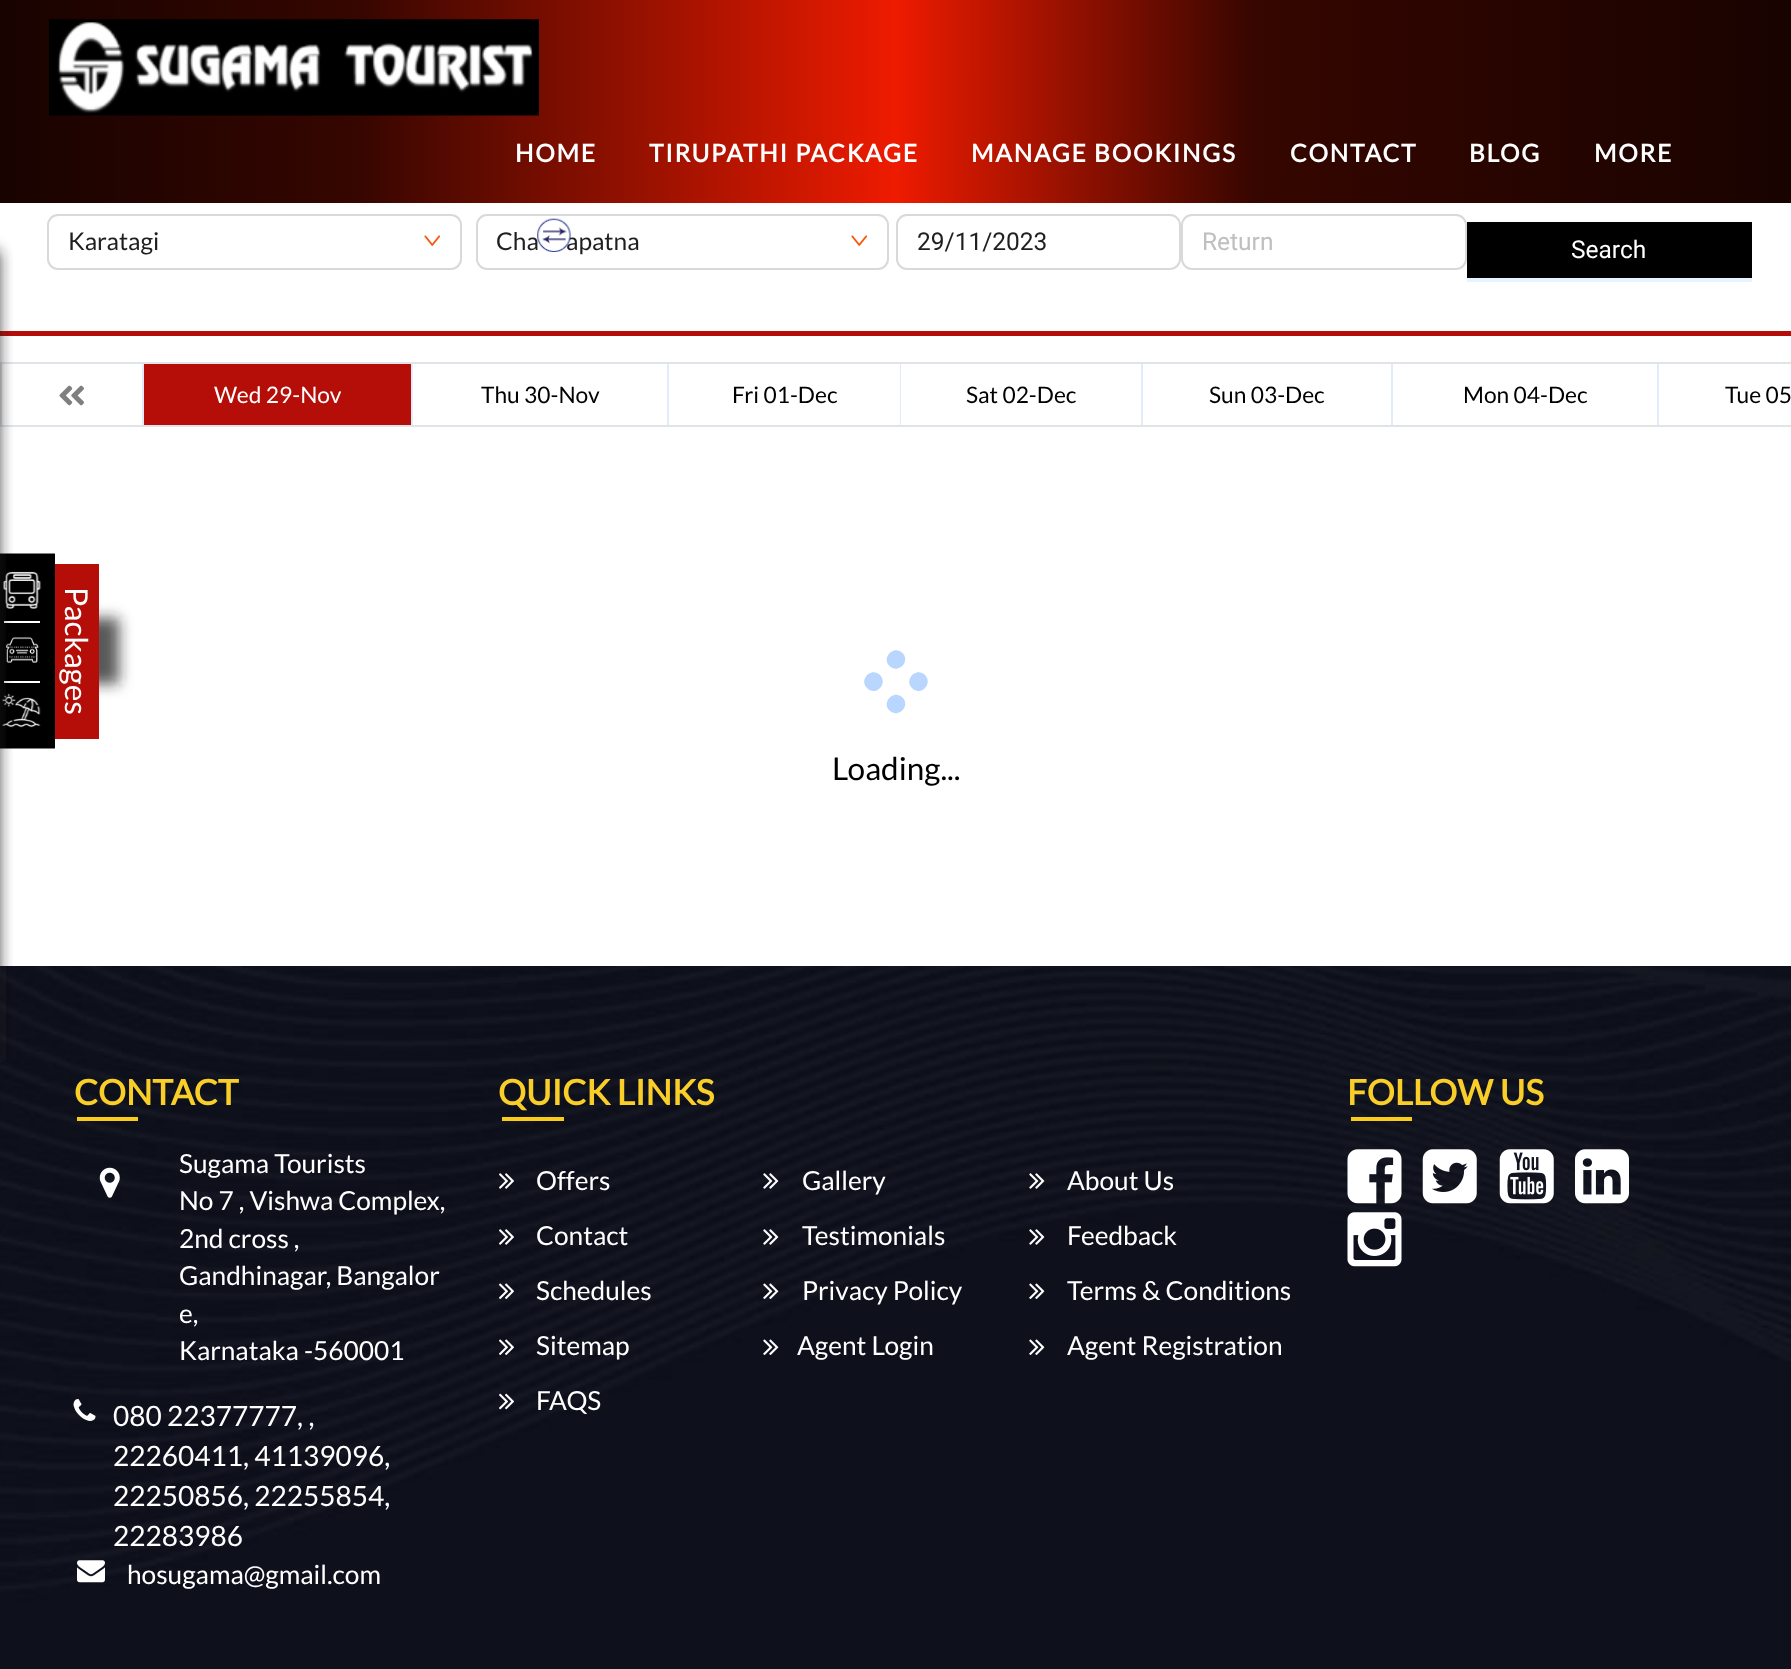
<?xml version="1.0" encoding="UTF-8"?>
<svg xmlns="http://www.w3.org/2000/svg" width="1791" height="1669">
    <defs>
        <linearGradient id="g1" gradientUnits="userSpaceOnUse" x1="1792" y1="102" x2="0" y2="101"><stop offset="0" stop-color="#180300"/><stop offset="0.3" stop-color="#360600"/><stop offset="0.5" stop-color="#EE1B00"/><stop offset="0.8" stop-color="#360600"/><stop offset="1" stop-color="#180300"/></linearGradient>
        <filter id="blur1" x="-50%" y="-200%" width="200%" height="500%"><feGaussianBlur stdDeviation="7"/></filter>
    </defs>
    <rect width="100%" height="100%" fill="#FFFFFF"/>
    <rect x="0" y="0" width="1791" height="203" fill="url(#g1)"/>
    <image x="49" y="19" width="490" height="97" href="img_01.png"/>
    <text x="515" y="162" font-family="Lato" font-size="24.5" font-weight="700" letter-spacing="1.75" fill="#FFFFFF">HOME</text>
    <text x="649" y="162" font-family="Lato" font-size="24.5" font-weight="700" letter-spacing="1.75" fill="#FFFFFF">TIRUPATHI PACKAGE</text>
    <text x="971" y="162" font-family="Lato" font-size="24.5" font-weight="700" letter-spacing="1.75" fill="#FFFFFF">MANAGE BOOKINGS</text>
    <text x="1290" y="162" font-family="Lato" font-size="24.5" font-weight="700" letter-spacing="1.75" fill="#FFFFFF">CONTACT</text>
    <text x="1469" y="162" font-family="Lato" font-size="24.5" font-weight="700" letter-spacing="1.75" fill="#FFFFFF">BLOG</text>
    <text x="1594" y="162" font-family="Lato" font-size="24.5" font-weight="700" letter-spacing="1.75" fill="#FFFFFF">MORE</text>
    <rect x="0" y="331" width="1791" height="5" fill="#B50E08"/>
    <rect x="48" y="215" width="413" height="54" rx="10" fill="none" stroke="#D9D9D9" stroke-width="2"/>
    <text x="68" y="250" font-family="Lato" font-size="24.5" fill="#1F1F1F">Karatagi</text>
    <image x="424" y="235" width="17" height="11" href="img_02.png"/>
    <rect x="477" y="215" width="411" height="54" rx="10" fill="none" stroke="#D9D9D9" stroke-width="2"/>
    <text x="496" y="250" font-family="Lato" font-size="24.5" fill="#1F1F1F">Cha</text>
    <text x="566" y="250" font-family="Lato" font-size="24.5" fill="#1F1F1F">apatna</text>
    <image x="537" y="218" width="34" height="34" href="img_03.png"/>
    <image x="851" y="235" width="17" height="11" href="img_02.png"/>
    <rect x="897" y="215" width="283" height="54" rx="10" fill="none" stroke="#D9D9D9" stroke-width="2"/>
    <text x="917" y="250" font-family="Roboto" font-size="24.5" fill="#1F1F1F">29/11/2023</text>
    <rect x="1182" y="215" width="284" height="54" rx="10" fill="none" stroke="#D9D9D9" stroke-width="2"/>
    <text x="1202" y="250" font-family="Roboto" font-size="24.5" fill="#BFBFBF">Return</text>
    <path d="M 1467 278 V 282 H 1752 V 226 V 278 Z" fill="#E6F4FF"/>
    <rect x="1467" y="222" width="285" height="56" fill="#000000"/>
    <text x="1571" y="258" font-family="Roboto" font-size="24.5" fill="#FFFFFF">Search</text>
    <rect x="1" y="363" width="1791" height="63" fill="none" stroke="#E0E4E8" stroke-width="2"/>
    <rect x="142" y="364" width="2" height="61" fill="#E2EBFC"/>
    <image x="59" y="385" width="25" height="21" href="img_04.png"/>
    <rect x="411" y="364" width="2" height="61" fill="#E2EBFC"/>
    <rect x="144" y="364" width="267" height="61" fill="#B50E08"/>
    <text x="214" y="403" font-family="Lato" font-size="22.75" fill="#FFFFFF">Wed 29-Nov</text>
    <rect x="667" y="364" width="2" height="61" fill="#E2EBFC"/>
    <text x="481" y="403" font-family="Lato" font-size="22.75" fill="#000000">Thu 30-Nov</text>
    <rect x="900" y="364" width="1" height="61" fill="#E2EBFC"/>
    <text x="732" y="403" font-family="Lato" font-size="22.75" fill="#000000">Fri 01-Dec</text>
    <rect x="1141" y="364" width="2" height="61" fill="#E2EBFC"/>
    <text x="966" y="403" font-family="Lato" font-size="22.75" fill="#000000">Sat 02-Dec</text>
    <rect x="1391" y="364" width="2" height="61" fill="#E2EBFC"/>
    <text x="1209" y="403" font-family="Lato" font-size="22.75" fill="#000000">Sun 03-Dec</text>
    <rect x="1657" y="364" width="2" height="61" fill="#E2EBFC"/>
    <text x="1463" y="403" font-family="Lato" font-size="22.75" fill="#000000">Mon 04-Dec</text>
    <text x="1725" y="403" font-family="Lato" font-size="22.75" fill="#000000">Tue 05</text>
    <path d="M 902.5 653 C 911 661.5 898 674.5 889.5 666 C 881 657.5 894 644.5 902.5 653 Z M 925 675 C 933.5 684 920.5 697 912 688 C 903.5 679.5 916.5 666.5 925 675 Z" fill="#B9D6FF"/>
    <path d="M 902.5 697.5 C 911 706 898 719 889.5 710.5 C 881 702 894 689 902.5 697.5 Z M 880 675 C 888.5 684 875.5 697 867 688 C 858.5 679.5 871.5 666.5 880 675 Z" fill="#B9D6FF"/>
    <text x="832" y="780" font-family="Lato" font-size="31.5" fill="#000000">Loading...</text>
    <rect x="-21" y="618" width="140" height="66" fill="#222222" fill-opacity="0.75" filter="url(#blur1)"/>
    <rect x="0" y="554" width="55" height="194" fill="#000000"/>
    <path d="M 54 554.5 V 747.5 H -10.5 V 554.5 Z" fill="none" stroke="#000000" stroke-width="1.8"/>
    <image x="3" y="571" width="39" height="38" href="img_05.png"/>
    <rect x="4" y="621" width="36" height="2" fill="#FFFFFF"/>
    <image x="6" y="637" width="33" height="26" href="img_06.png"/>
    <rect x="4" y="681" width="36" height="2" fill="#FFFFFF"/>
    <image x="2" y="693" width="39" height="35" href="img_07.png"/>
    <image x="0" y="966" width="1791" height="703" href="img_08.png"/>
    <rect x="-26" y="250" width="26" height="812" rx="5" fill="#222222" fill-opacity="0.75" filter="url(#blur1)"/>
    <rect x="55" y="564" width="44" height="175" fill="#B50E08"/>
    <text x="65" y="587" transform="rotate(90 65 587)" font-family="Lato" font-size="31.5" fill="#FFFFFF">Packages</text>
    <text x="74" y="1105" font-family="Lato" font-size="35" font-weight="700" fill="#FACE28">CONTACT</text>
    <rect x="77" y="1117" width="61" height="4" fill="#FACB18"/>
    <image x="99" y="1167" width="21" height="31" href="img_09.png"/>
    <text font-family="Lato" font-size="26.25" fill="#FFFFFF">
        <tspan x="179" y="1173">Sugama Tourists</tspan>
        <tspan x="179" y="1210">No 7 , Vishwa Complex,</tspan>
        <tspan x="179" y="1248">2nd cross ,</tspan>
        <tspan x="179" y="1285">Gandhinagar, Bangalor</tspan>
        <tspan x="179" y="1323">e,</tspan>
        <tspan x="179" y="1360">Karnataka -560001</tspan>
    </text>
    <image x="73" y="1399" width="23" height="22" href="img_10.png"/>
    <text font-family="Lato" font-size="28" fill="#FFFFFF">
        <tspan x="113" y="1426">080 22377777, ,</tspan>
        <tspan x="113" y="1466">22260411, 41139096,</tspan>
        <tspan x="113" y="1506">22250856, 22255854,</tspan>
        <tspan x="113" y="1546">22283986</tspan>
    </text>
    <image x="77" y="1560" width="28" height="23" href="img_11.png"/>
    <text x="127" y="1584" font-family="Lato" font-size="26.25" fill="#FFFFFF">hosugama@gmail.com</text>
    <text x="498" y="1105" font-family="Lato" font-size="35" font-weight="700" fill="#FACE28">QUICK LINKS</text>
    <rect x="502" y="1117" width="62" height="4" fill="#FACB18"/>
    <image x="499" y="1173" width="15" height="16" href="img_12.png"/>
    <text x="536" y="1190" font-family="Lato" font-size="26.25" fill="#FFFFFF">Offers</text>
    <image x="763" y="1173" width="16" height="16" href="img_13.png"/>
    <text x="802" y="1190" font-family="Lato" font-size="26.25" fill="#FFFFFF">Gallery</text>
    <image x="1029" y="1173" width="16" height="16" href="img_14.png"/>
    <text x="1067" y="1190" font-family="Lato" font-size="26.25" fill="#FFFFFF">About Us</text>
    <image x="499" y="1229" width="15" height="16" href="img_15.png"/>
    <text x="536" y="1245" font-family="Lato" font-size="26.25" fill="#FFFFFF">Contact</text>
    <image x="763" y="1229" width="16" height="16" href="img_16.png"/>
    <text x="802" y="1245" font-family="Lato" font-size="26.25" fill="#FFFFFF">Testimonials</text>
    <image x="1029" y="1229" width="16" height="16" href="img_17.png"/>
    <text x="1067" y="1245" font-family="Lato" font-size="26.25" fill="#FFFFFF">Feedback</text>
    <image x="499" y="1283" width="15" height="16" href="img_18.png"/>
    <text x="536" y="1300" font-family="Lato" font-size="26.25" fill="#FFFFFF">Schedules</text>
    <image x="763" y="1283" width="16" height="16" href="img_19.png"/>
    <text x="802" y="1300" font-family="Lato" font-size="26.25" fill="#FFFFFF">Privacy Policy</text>
    <image x="1029" y="1283" width="16" height="16" href="img_20.png"/>
    <text x="1067" y="1300" font-family="Lato" font-size="26.25" fill="#FFFFFF">Terms &amp; Conditions</text>
    <image x="499" y="1339" width="15" height="16" href="img_21.png"/>
    <text x="536" y="1355" font-family="Lato" font-size="26.25" fill="#FFFFFF">Sitemap</text>
    <image x="763" y="1339" width="16" height="16" href="img_20.png"/>
    <text x="797" y="1355" font-family="Lato" font-size="26.25" fill="#FFFFFF">Agent Login</text>
    <image x="1029" y="1339" width="16" height="16" href="img_20.png"/>
    <text x="1067" y="1355" font-family="Lato" font-size="26.25" fill="#FFFFFF">Agent Registration</text>
    <image x="499" y="1393" width="15" height="17" href="img_22.png"/>
    <text x="536" y="1410" font-family="Lato" font-size="26.25" fill="#FFFFFF">FAQS</text>
    <text x="1347" y="1105" font-family="Lato" font-size="35" font-weight="700" fill="#FACE28">FOLLOW US</text>
    <rect x="1351" y="1117" width="61" height="4" fill="#FACB18"/>
    <image x="1347" y="1149" width="55" height="55" href="img_23.png"/>
    <image x="1422" y="1149" width="55" height="55" href="img_24.png"/>
    <image x="1499" y="1149" width="55" height="55" href="img_25.png"/>
    <image x="1575" y="1149" width="54" height="55" href="img_26.png"/>
    <image x="1347" y="1212" width="55" height="55" href="img_27.png"/>
</svg>
